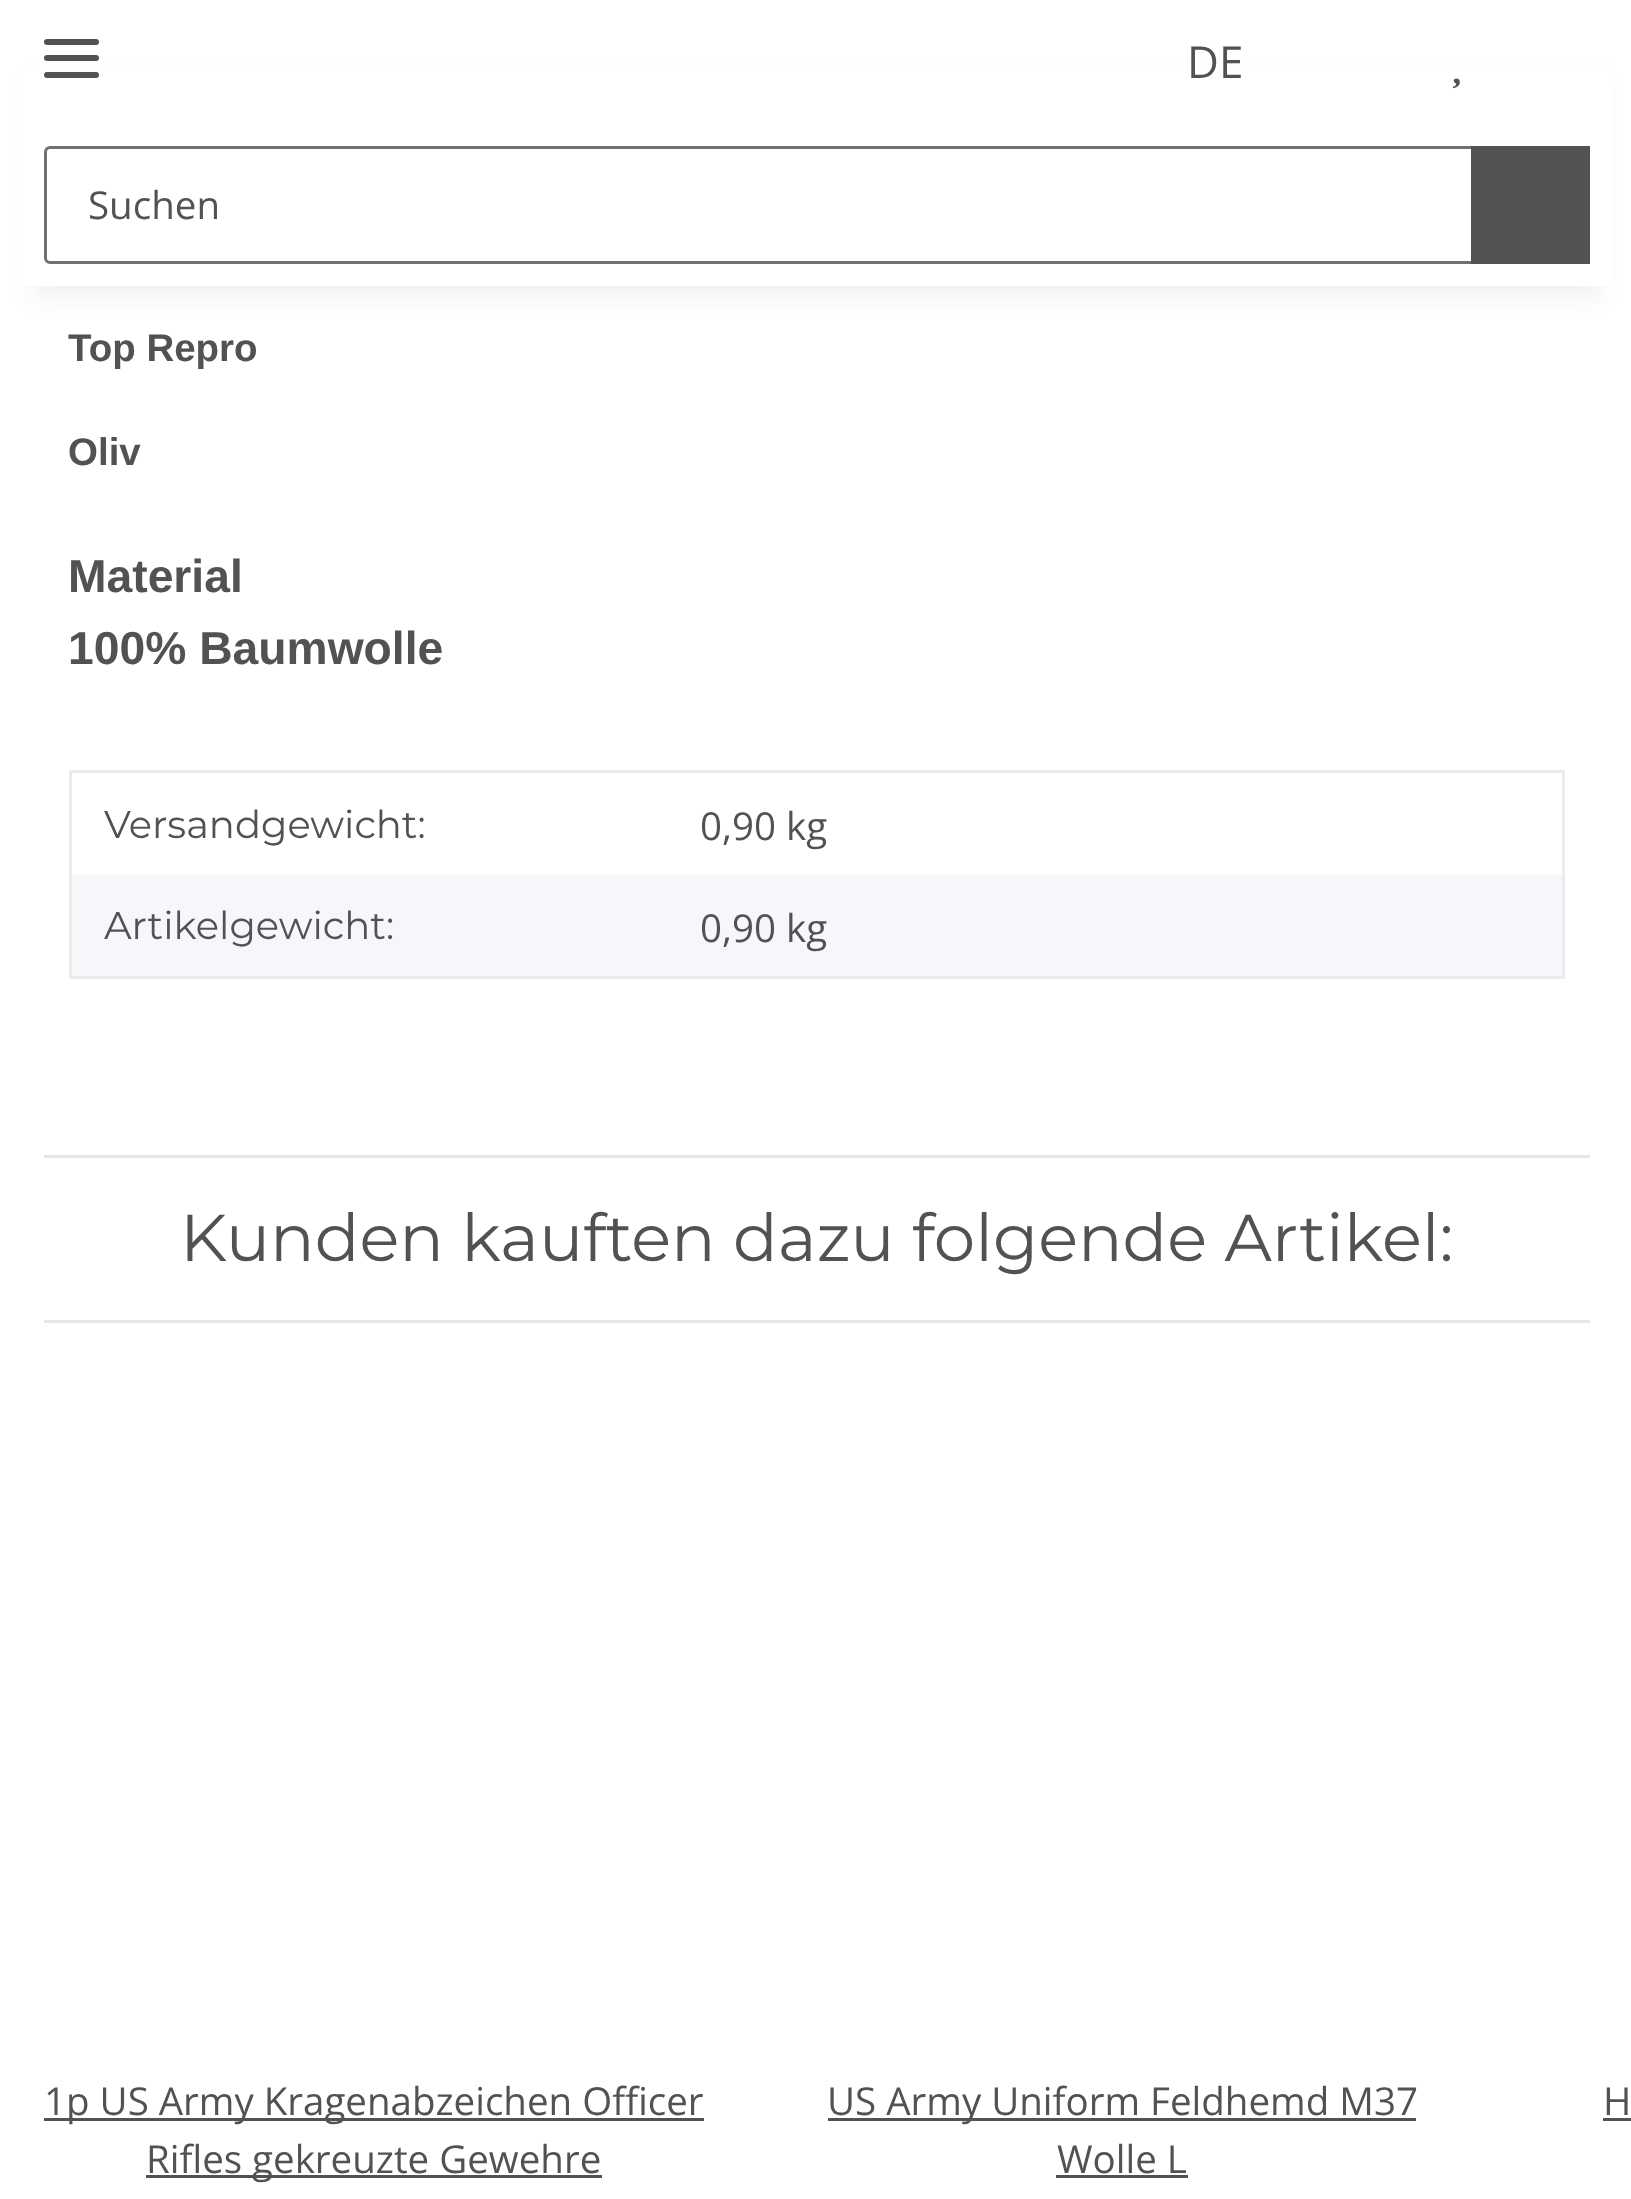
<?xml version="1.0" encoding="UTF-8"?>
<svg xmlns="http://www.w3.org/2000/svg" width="1631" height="2199">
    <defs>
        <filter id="blur1" x="-50%" y="-200%" width="200%" height="500%"><feGaussianBlur stdDeviation="12.5"/></filter>
    </defs>
    <rect width="100%" height="100%" fill="#FFFFFF"/>
    <rect x="33" y="77" width="1568" height="220" fill="#000000" fill-opacity="0.06" filter="url(#blur1)"/>
    <rect x="21" y="65" width="1592" height="221" fill="#FFFFFF"/>
    <rect x="44" y="55" width="55" height="6" rx="3" fill="#525252"/>
    <rect x="44" y="39" width="55" height="6" rx="3" fill="#525252"/>
    <rect x="44" y="72" width="55" height="6" rx="3" fill="#525252"/>
    <text x="1187" y="78" font-family="Open Sans" font-size="44" fill="#525252">DE</text>
    <image x="1452" y="78" width="8" height="11" href="img_01.png"/>
    <path d="M 50 147.5 H 1472.5 V 262.5 H 50 C 47.5 262.5 45.5 260.5 45.5 258 V 152 C 45.5 149.5 47.5 147.5 50 147.5 Z" fill="none" stroke="#707070" stroke-width="3"/>
    <text x="88" y="219" font-family="Open Sans" font-size="38.5" fill="#525252">Suchen</text>
    <rect x="1471" y="146" width="119" height="118" fill="#525252"/>
    <text x="68" y="361" font-family="Liberation Sans" font-size="38.5" font-weight="700" fill="#525252">Top Repro</text>
    <text x="68" y="465" font-family="Liberation Sans" font-size="38.5" font-weight="700" fill="#525252">Oliv</text>
    <text font-family="Liberation Sans" font-size="46.25" font-weight="700" fill="#525252">
        <tspan x="68" y="592">Material</tspan>
        <tspan x="68" y="664">100% Baumwolle</tspan>
    </text>
    <rect x="69" y="770" width="1496" height="3" fill="#EBEBEB"/>
    <rect x="1562" y="875" width="3" height="104" fill="#EBEBEB"/>
    <rect x="1562" y="770" width="3" height="107" fill="#EBEBEB"/>
    <rect x="69" y="976" width="1496" height="3" fill="#EBEBEB"/>
    <rect x="69" y="875" width="3" height="104" fill="#EBEBEB"/>
    <rect x="69" y="770" width="3" height="107" fill="#EBEBEB"/>
    <text x="104" y="838" font-family="Montserrat" font-size="38.5" fill="#525252">Versandgewicht:</text>
    <text x="700" y="840" font-family="Open Sans" font-size="38.5" fill="#525252">0,90 kg</text>
    <rect x="72" y="875" width="1490" height="101" fill="#F5F7FA"/>
    <text x="104" y="939" font-family="Montserrat" font-size="38.5" fill="#525252">Artikelgewicht:</text>
    <text x="700" y="942" font-family="Open Sans" font-size="38.5" fill="#525252">0,90 kg</text>
    <rect x="44" y="1155" width="1546" height="3" fill="#E6E6E6"/>
    <rect x="44" y="1320" width="1546" height="3" fill="#E6E6E6"/>
    <text x="180" y="1261" font-family="Montserrat" font-size="66" fill="#525252">Kunden kauften dazu folgende Artikel:</text>
    <rect x="44" y="2118" width="660" height="3" fill="#525252"/>
    <text x="44" y="2115" font-family="Open Sans" font-size="38.5" fill="#525252">1p US Army Kragenabzeichen Officer</text>
    <rect x="146" y="2175" width="456" height="3" fill="#525252"/>
    <text x="146" y="2173" font-family="Open Sans" font-size="38.5" fill="#525252">Rifles gekreuzte Gewehre</text>
    <rect x="828" y="2118" width="588" height="3" fill="#525252"/>
    <text x="827" y="2115" font-family="Open Sans" font-size="38.5" fill="#525252">US Army Uniform Feldhemd M37</text>
    <text x="1057" y="2173" font-family="Open Sans" font-size="38.5" fill="#525252">Wolle L</text>
    <rect x="1056" y="2175" width="132" height="3" fill="#525252"/>
    <text x="1603" y="2115" font-family="Open Sans" font-size="38.5" fill="#525252">H</text>
    <rect x="1603" y="2118" width="28" height="3" fill="#525252"/>
</svg>
